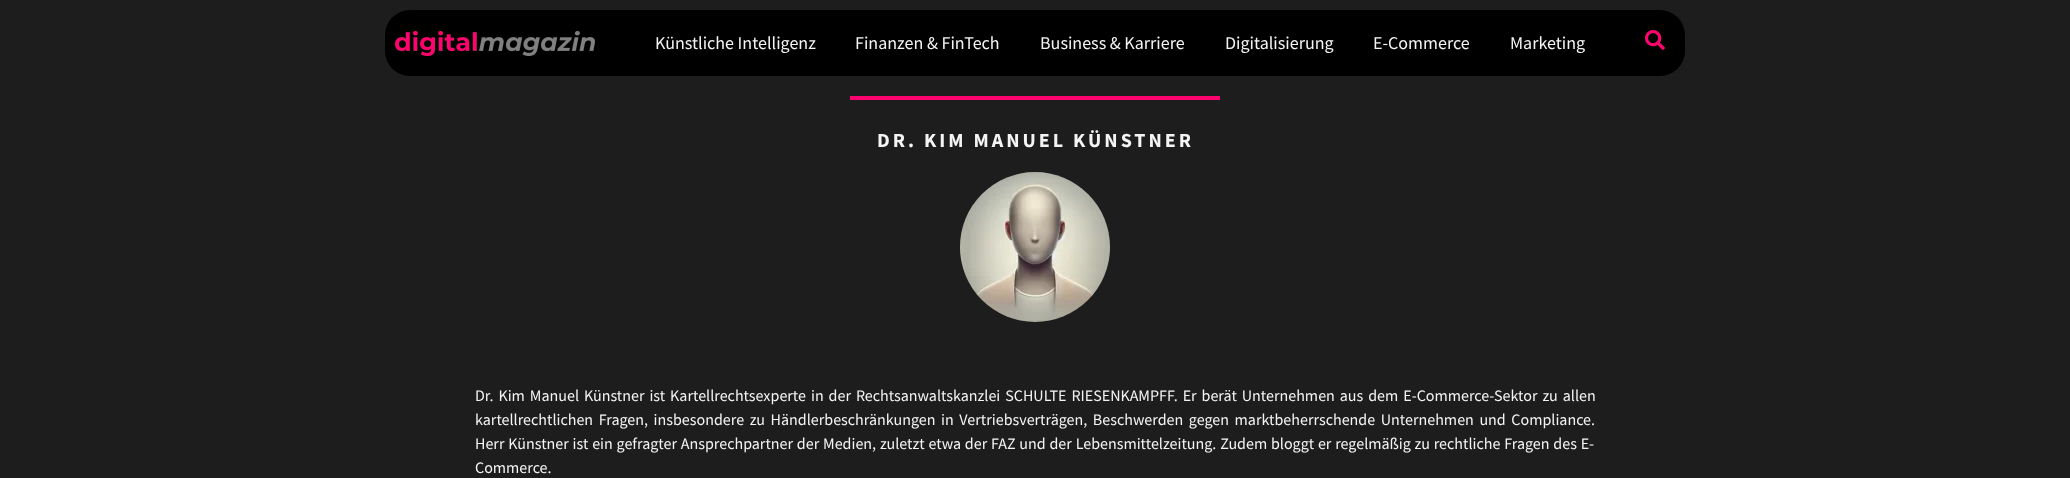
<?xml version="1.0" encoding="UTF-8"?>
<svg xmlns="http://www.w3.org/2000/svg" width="2070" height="478">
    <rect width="100%" height="100%" fill="#1D1D1D"/>
    <rect x="385" y="10" width="1300" height="66" rx="25" fill="#000000"/>
    <image x="395" y="31" width="200" height="25" href="img_01.png"/>
    <text x="655" y="49" font-family="Source Sans Pro" font-size="18" fill="#F4F4F4">Künstliche Intelligenz</text>
    <text x="855" y="49" font-family="Source Sans Pro" font-size="18" fill="#F4F4F4">Finanzen &amp; FinTech</text>
    <text x="1040" y="49" font-family="Source Sans Pro" font-size="18" fill="#F4F4F4">Business &amp; Karriere</text>
    <text x="1225" y="49" font-family="Source Sans Pro" font-size="18" fill="#F4F4F4">Digitalisierung</text>
    <text x="1373" y="49" font-family="Source Sans Pro" font-size="18" fill="#F4F4F4">E-Commerce</text>
    <text x="1510" y="49" font-family="Source Sans Pro" font-size="18" fill="#F4F4F4">Marketing</text>
    <image x="1645" y="30" width="20" height="20" href="img_02.png"/>
    <rect x="850" y="96" width="370" height="4" fill="#FF036E"/>
    <text x="877" y="147" font-family="Source Sans Pro" font-size="20" font-weight="700" letter-spacing="3" fill="#F4F4F4">DR. KIM MANUEL KÜNSTNER</text>
    <image x="960" y="172" width="150" height="150" href="img_03.png"/>
    <text font-family="Source Sans Pro" font-size="16" fill="#F4F4F4">
        <tspan x="475" y="401" word-spacing="1.75">Dr. Kim Manuel Künstner ist Kartellrechtsexperte in der Rechtsanwaltskanzlei SCHULTE RIESENKAMPFF. Er berät Unternehmen aus dem E-Commerce-Sektor zu allen</tspan>
        <tspan x="475" y="425" word-spacing="2.4">kartellrechtlichen Fragen, insbesondere zu Händlerbeschränkungen in Vertriebsverträgen, Beschwerden gegen marktbeherrschende Unternehmen und Compliance.</tspan>
        <tspan x="475" y="449" word-spacing="0.6">Herr Künstner ist ein gefragter Ansprechpartner der Medien, zuletzt etwa der FAZ und der Lebensmittelzeitung. Zudem bloggt er regelmäßig zu rechtliche Fragen des E-</tspan>
        <tspan x="475" y="473">Commerce.</tspan>
    </text>
</svg>
